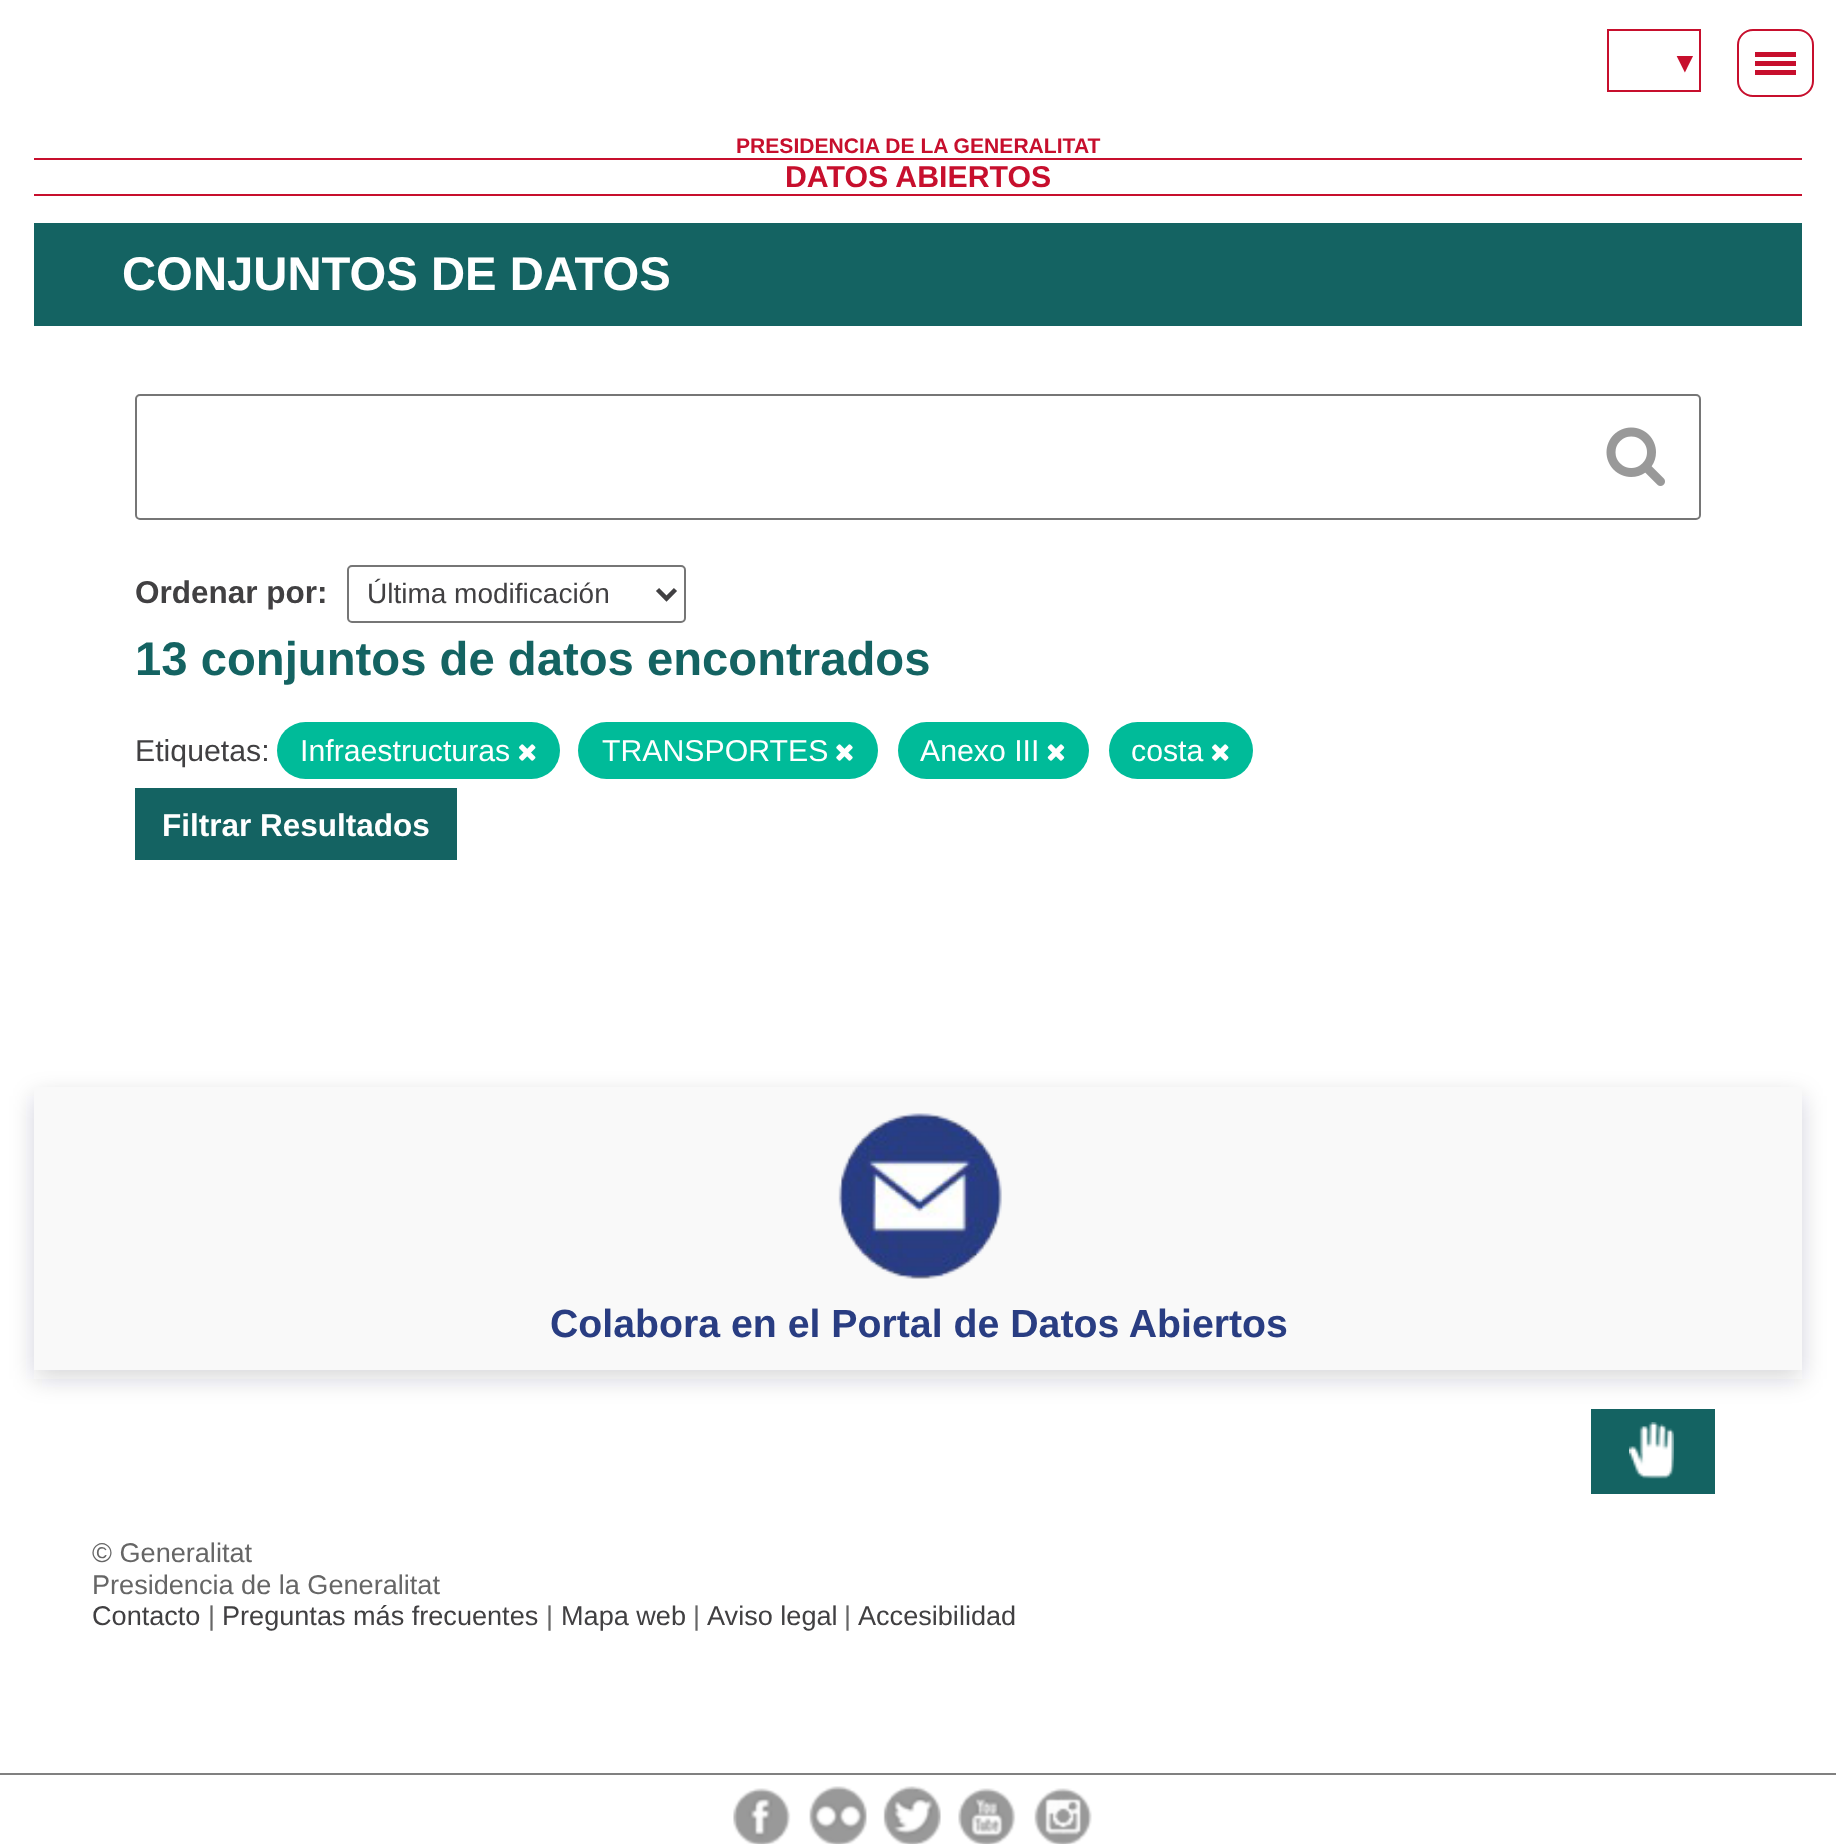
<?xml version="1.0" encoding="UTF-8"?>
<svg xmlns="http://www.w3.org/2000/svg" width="1836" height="1844">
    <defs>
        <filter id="blur1" x="-50%" y="-200%" width="200%" height="500%"><feGaussianBlur stdDeviation="12.5"/></filter>
    </defs>
    <rect width="100%" height="100%" fill="#FFFFFF"/>
    <rect x="1608" y="30" width="92" height="61" fill="none" stroke="#C70F2D" stroke-width="2"/>
    <text x="1671" y="72" font-family="Liberation Sans" font-size="28" fill="#C70F2D">▼</text>
    <rect x="1738" y="30" width="75" height="66" rx="15" fill="none" stroke="#C70F2D" stroke-width="2"/>
    <rect x="1755" y="52" width="41" height="5" fill="#C70F2D"/>
    <rect x="1755" y="61" width="41" height="5" fill="#C70F2D"/>
    <rect x="1755" y="70" width="41" height="5" fill="#C70F2D"/>
    <text x="736" y="153" font-family="Liberation Sans" font-size="21.1" font-weight="700" fill="#C70F2D">PRESIDENCIA DE LA GENERALITAT</text>
    <rect x="34" y="158" width="1768" height="2" fill="#C70F2D"/>
    <rect x="34" y="194" width="1768" height="2" fill="#C70F2D"/>
    <text x="785" y="187" font-family="Liberation Sans" font-size="30.25" font-weight="700" fill="#C70F2D">DATOS ABIERTOS</text>
    <rect x="34" y="223" width="1768" height="103" fill="#146362"/>
    <text x="122" y="290" font-family="Liberation Sans" font-size="47.25" font-weight="700" fill="#FFFFFF">CONJUNTOS DE DATOS</text>
    <rect x="136" y="395" width="1564" height="124" rx="4" fill="none" stroke="#767676" stroke-width="2"/>
    <image x="1606" y="427" width="59" height="59" href="img_01.png"/>
    <text x="135" y="603" font-family="Liberation Sans" font-size="31.5" font-weight="700" fill="#414042">Ordenar por:</text>
    <rect x="348" y="566" width="337" height="56" rx="4" fill="none" stroke="#767676" stroke-width="2"/>
    <path d="M 657.5 589.5 L 666.5 598.5 L 675.5 589.5" fill="none" stroke="#414042" stroke-width="4.5"/>
    <text x="367" y="603" font-family="Liberation Sans" font-size="28" fill="#414042">Última modificación</text>
    <text x="135" y="675" font-family="Liberation Sans" font-size="47.25" font-weight="700" fill="#146362">13 conjuntos de datos encontrados</text>
    <text x="135" y="761" font-family="Liberation Sans" font-size="30.25" fill="#414042">Etiquetas:</text>
    <rect x="277" y="722" width="283" height="57" rx="28.5" fill="#00BB99"/>
    <text x="300" y="761" font-family="Liberation Sans" font-size="30.25" fill="#FFFFFF">Infraestructuras</text>
    <image x="519" y="744" width="17" height="17" href="img_02.png"/>
    <rect x="578" y="722" width="300" height="57" rx="28.5" fill="#00BB99"/>
    <text x="602" y="761" font-family="Liberation Sans" font-size="30.25" fill="#FFFFFF">TRANSPORTES</text>
    <image x="836" y="744" width="17" height="17" href="img_03.png"/>
    <rect x="898" y="722" width="191" height="57" rx="28.5" fill="#00BB99"/>
    <text x="920" y="761" font-family="Liberation Sans" font-size="30.25" fill="#FFFFFF">Anexo III</text>
    <image x="1047" y="744" width="18" height="17" href="img_04.png"/>
    <rect x="1109" y="722" width="144" height="57" rx="28.5" fill="#00BB99"/>
    <text x="1131" y="761" font-family="Liberation Sans" font-size="30.25" fill="#FFFFFF">costa</text>
    <image x="1212" y="744" width="17" height="17" href="img_02.png"/>
    <rect x="135" y="788" width="322" height="72" fill="#146362"/>
    <text x="162" y="836" font-family="Liberation Sans" font-size="31.5" font-weight="700" fill="#FFFFFF">Filtrar Resultados</text>
    <rect x="34" y="1096" width="1768" height="283" fill="#292D37" fill-opacity="0.18" filter="url(#blur1)"/>
    <rect x="34" y="1087" width="1768" height="283" fill="#F9F9F9"/>
    <image x="838" y="1113" width="164" height="167" href="img_05.png"/>
    <text x="550" y="1337" font-family="Liberation Sans" font-size="39.25" font-weight="700" fill="#293D82">Colabora en el Portal de Datos Abiertos</text>
    <rect x="1591" y="1409" width="124" height="85" fill="#146362"/>
    <image x="1629" y="1422" width="45" height="57" href="img_06.png"/>
    <text font-family="Liberation Sans" font-size="27.1" fill="#666666">
        <tspan x="92" y="1562">© Generalitat</tspan>
        <tspan x="92" y="1594">Presidencia de la Generalitat</tspan>
    </text>
    <text x="92" y="1625" font-family="Liberation Sans" font-size="27.1" fill="#414042">Contacto</text>
    <text x="208" y="1625" font-family="Liberation Sans" font-size="27.1" fill="#666666">|</text>
    <text x="222" y="1625" font-family="Liberation Sans" font-size="27.1" fill="#414042">Preguntas más frecuentes</text>
    <text x="546" y="1625" font-family="Liberation Sans" font-size="27.1" fill="#666666">|</text>
    <text x="561" y="1625" font-family="Liberation Sans" font-size="27.1" fill="#414042">Mapa web</text>
    <text x="693" y="1625" font-family="Liberation Sans" font-size="27.1" fill="#666666">|</text>
    <text x="707" y="1625" font-family="Liberation Sans" font-size="27.1" fill="#414042">Aviso legal</text>
    <text x="844" y="1625" font-family="Liberation Sans" font-size="27.1" fill="#666666">|</text>
    <text x="858" y="1625" font-family="Liberation Sans" font-size="27.1" fill="#414042">Accesibilidad</text>
    <rect x="0" y="1773" width="1836" height="2" fill="#808080"/>
    <image x="733" y="1788" width="58" height="56" href="img_07.png"/>
    <image x="809" y="1786" width="58" height="58" href="img_08.png"/>
    <image x="883" y="1786" width="58" height="58" href="img_09.png"/>
    <image x="958" y="1788" width="58" height="56" href="img_10.png"/>
    <image x="1034" y="1788" width="58" height="56" href="img_11.png"/>
</svg>
